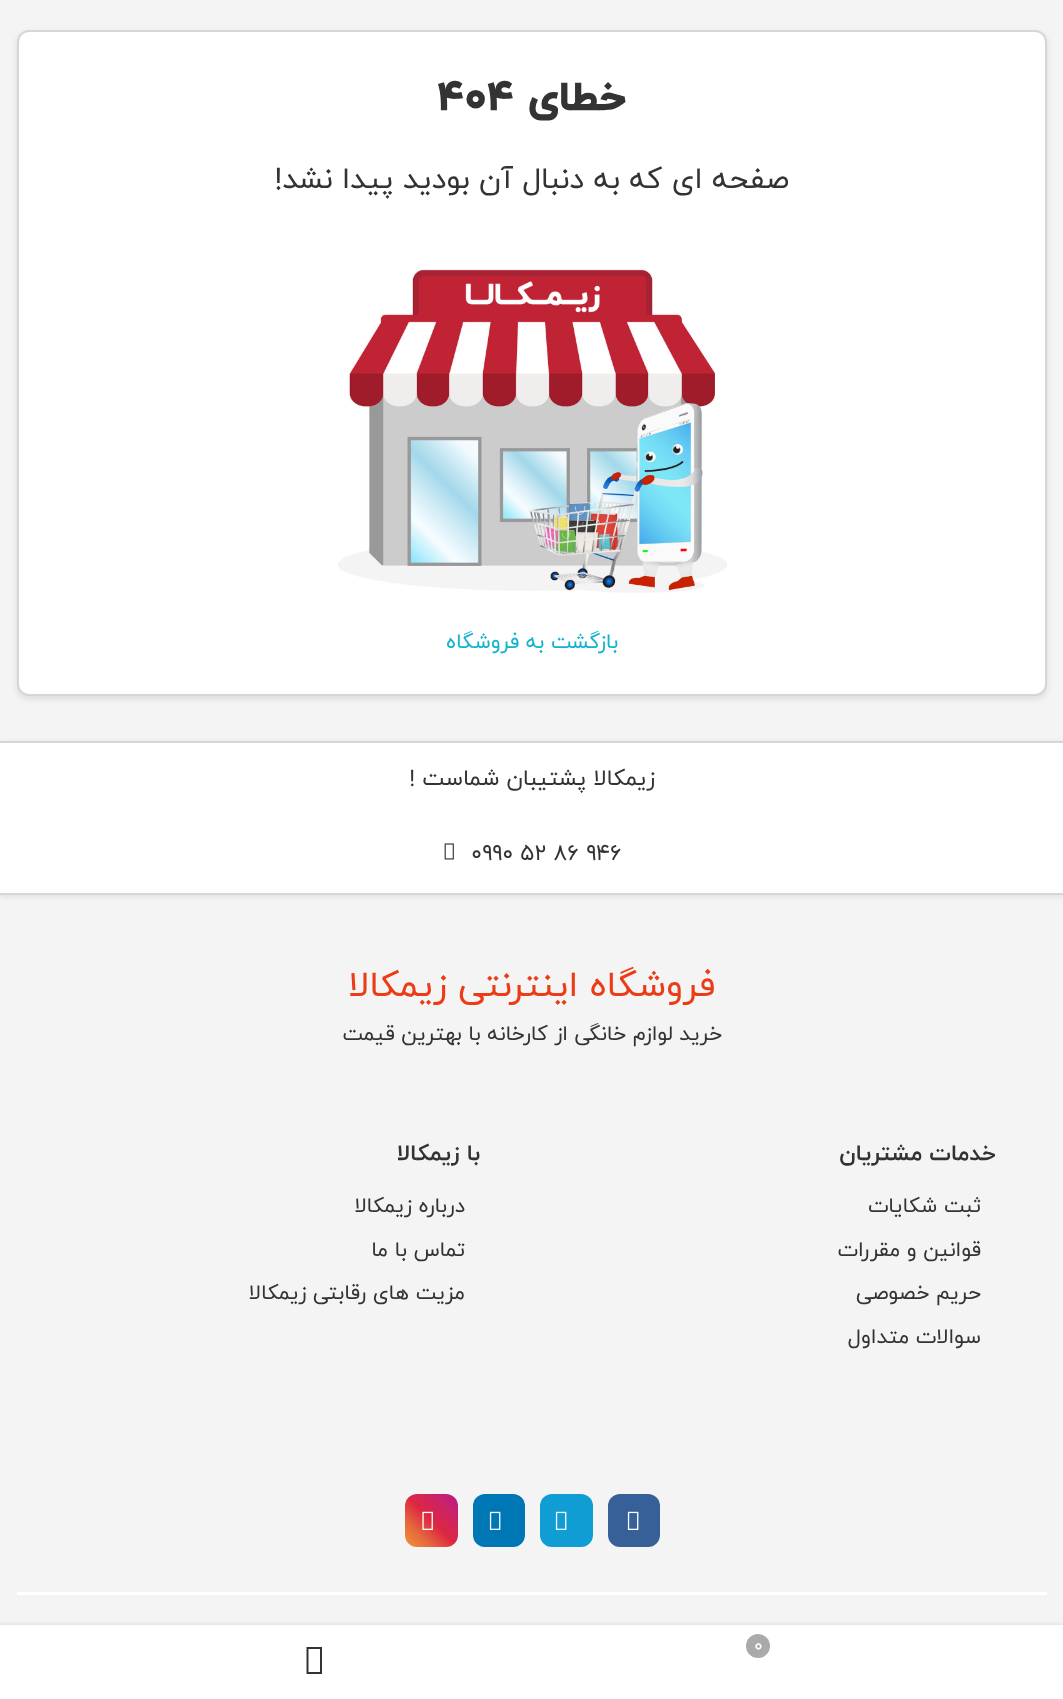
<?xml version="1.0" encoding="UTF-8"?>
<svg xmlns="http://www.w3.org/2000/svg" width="1063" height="1699">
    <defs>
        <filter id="blur1" x="-50%" y="-200%" width="200%" height="500%"><feGaussianBlur stdDeviation="3"/></filter>
        <linearGradient id="g1" gradientUnits="userSpaceOnUse" x1="405" y1="1547" x2="458" y2="1494"><stop offset="0" stop-color="#F09433"/><stop offset="0.25" stop-color="#E6683C"/><stop offset="0.5" stop-color="#DC2743"/><stop offset="0.75" stop-color="#CC2366"/><stop offset="1" stop-color="#BC1888"/></linearGradient>
        <filter id="blur2" x="-50%" y="-200%" width="200%" height="500%"><feGaussianBlur stdDeviation="1.5"/></filter>
    </defs>
    <rect width="100%" height="100%" fill="#F4F4F4"/>
    <rect x="17" y="33" width="1030" height="666" rx="12" fill="#000000" fill-opacity="0.1" filter="url(#blur1)"/>
    <rect x="18" y="31" width="1028" height="664" rx="11" fill="#FFFFFF" stroke="#D6D6D6" stroke-width="2"/>
    <text x="626" y="110" font-family="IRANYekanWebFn" font-size="42" font-weight="800" direction="rtl" fill="#333333">خطای</text>
    <text x="437" y="110" font-family="IRANYekanWebFn" font-size="42" font-weight="800" fill="#333333">404</text>
    <text x="789" y="188" font-family="IRANYekanWebFn" font-size="30" direction="rtl" fill="#333333">صفحه ای که به دنبال آن بودید پیدا نشد!</text>
    <image x="338" y="268" width="389" height="325" href="img_01.png"/>
    <text x="618" y="648" font-family="IRANYekanWebFn" font-size="21" direction="rtl" fill="#12B4CD">بازگشت به فروشگاه</text>
    <rect x="0" y="743" width="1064" height="153" fill="#000000" fill-opacity="0.1" filter="url(#blur1)"/>
    <rect x="0" y="743" width="1063" height="150" fill="#FFFFFF"/>
    <rect x="0" y="741" width="1063" height="2" fill="#D6D6D6"/>
    <rect x="0" y="893" width="1063" height="2" fill="#D6D6D6"/>
    <text x="655" y="785" font-family="IRANYekanWebFn" font-size="22.5" direction="rtl" fill="#333333">زیمکالا پشتیبان شماست !</text>
    <text x="471" y="860" font-family="IRANYekanWebFn" font-size="22.5" fill="#333333">۰۹۹۰ ۵۲ ۸۶ ۹۴۶</text>
    <image x="444" y="843" width="10" height="17" href="img_02.png"/>
    <text x="715" y="996" font-family="IRANYekanWebFn" font-size="36" direction="rtl" fill="#EC3C16">فروشگاه اینترنتی زیمکالا</text>
    <text x="722" y="1040" font-family="IRANYekanWebFn" font-size="21" direction="rtl" fill="#333333">خرید لوازم خانگی از کارخانه با بهترین قیمت</text>
    <text x="996" y="1160" font-family="IRANYekanWebFn" font-size="22.5" font-weight="700" direction="rtl" fill="#333333">خدمات مشتریان</text>
    <text x="981" y="1212" font-family="IRANYekanWebFn" font-size="21" direction="rtl" fill="#333333">ثبت شکایات</text>
    <text x="981" y="1256" font-family="IRANYekanWebFn" font-size="21" direction="rtl" fill="#333333">قوانین و مقررات</text>
    <text x="981" y="1299" font-family="IRANYekanWebFn" font-size="21" direction="rtl" fill="#333333">حریم خصوصی</text>
    <text x="981" y="1343" font-family="IRANYekanWebFn" font-size="21" direction="rtl" fill="#333333">سوالات متداول</text>
    <text x="480" y="1160" font-family="IRANYekanWebFn" font-size="22.5" font-weight="700" direction="rtl" fill="#333333">با زیمکالا</text>
    <text x="465" y="1212" font-family="IRANYekanWebFn" font-size="21" direction="rtl" fill="#333333">درباره زیمکالا</text>
    <text x="465" y="1256" font-family="IRANYekanWebFn" font-size="21" direction="rtl" fill="#333333">تماس با ما</text>
    <text x="465" y="1299" font-family="IRANYekanWebFn" font-size="21" direction="rtl" fill="#333333">مزیت های رقابتی زیمکالا</text>
    <rect x="608" y="1494" width="52" height="53" rx="12" fill="#375F98"/>
    <image x="627" y="1511" width="12" height="19" href="img_03.png"/>
    <rect x="540" y="1494" width="53" height="53" rx="12" fill="#0F9DD4"/>
    <image x="555" y="1511" width="12" height="19" href="img_04.png"/>
    <rect x="473" y="1494" width="52" height="53" rx="12" fill="#0077B5"/>
    <image x="489" y="1511" width="12" height="19" href="img_05.png"/>
    <rect x="405" y="1494" width="53" height="53" rx="12" fill="url(#g1)"/>
    <image x="422" y="1511" width="11" height="19" href="img_06.png"/>
    <rect x="17" y="1592" width="1030" height="3" fill="#FFFFFF"/>
    <rect x="-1" y="1623" width="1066" height="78" fill="#E6E6E6" filter="url(#blur2)"/>
    <rect x="0" y="1625" width="1063" height="74" fill="#FFFFFF"/>
    <circle cx="758" cy="1646" r="12" fill="#AAAAAA"/>
    <text x="754" y="1651" font-family="IRANYekanWebFn" font-size="18" fill="#FFFFFF">0</text>
    <path d="M 306.5 1674 V 1647 H 322 V 1674 Z M 308.5 1672 H 320 V 1649 H 308.5 Z" fill="#333333"/>
</svg>
